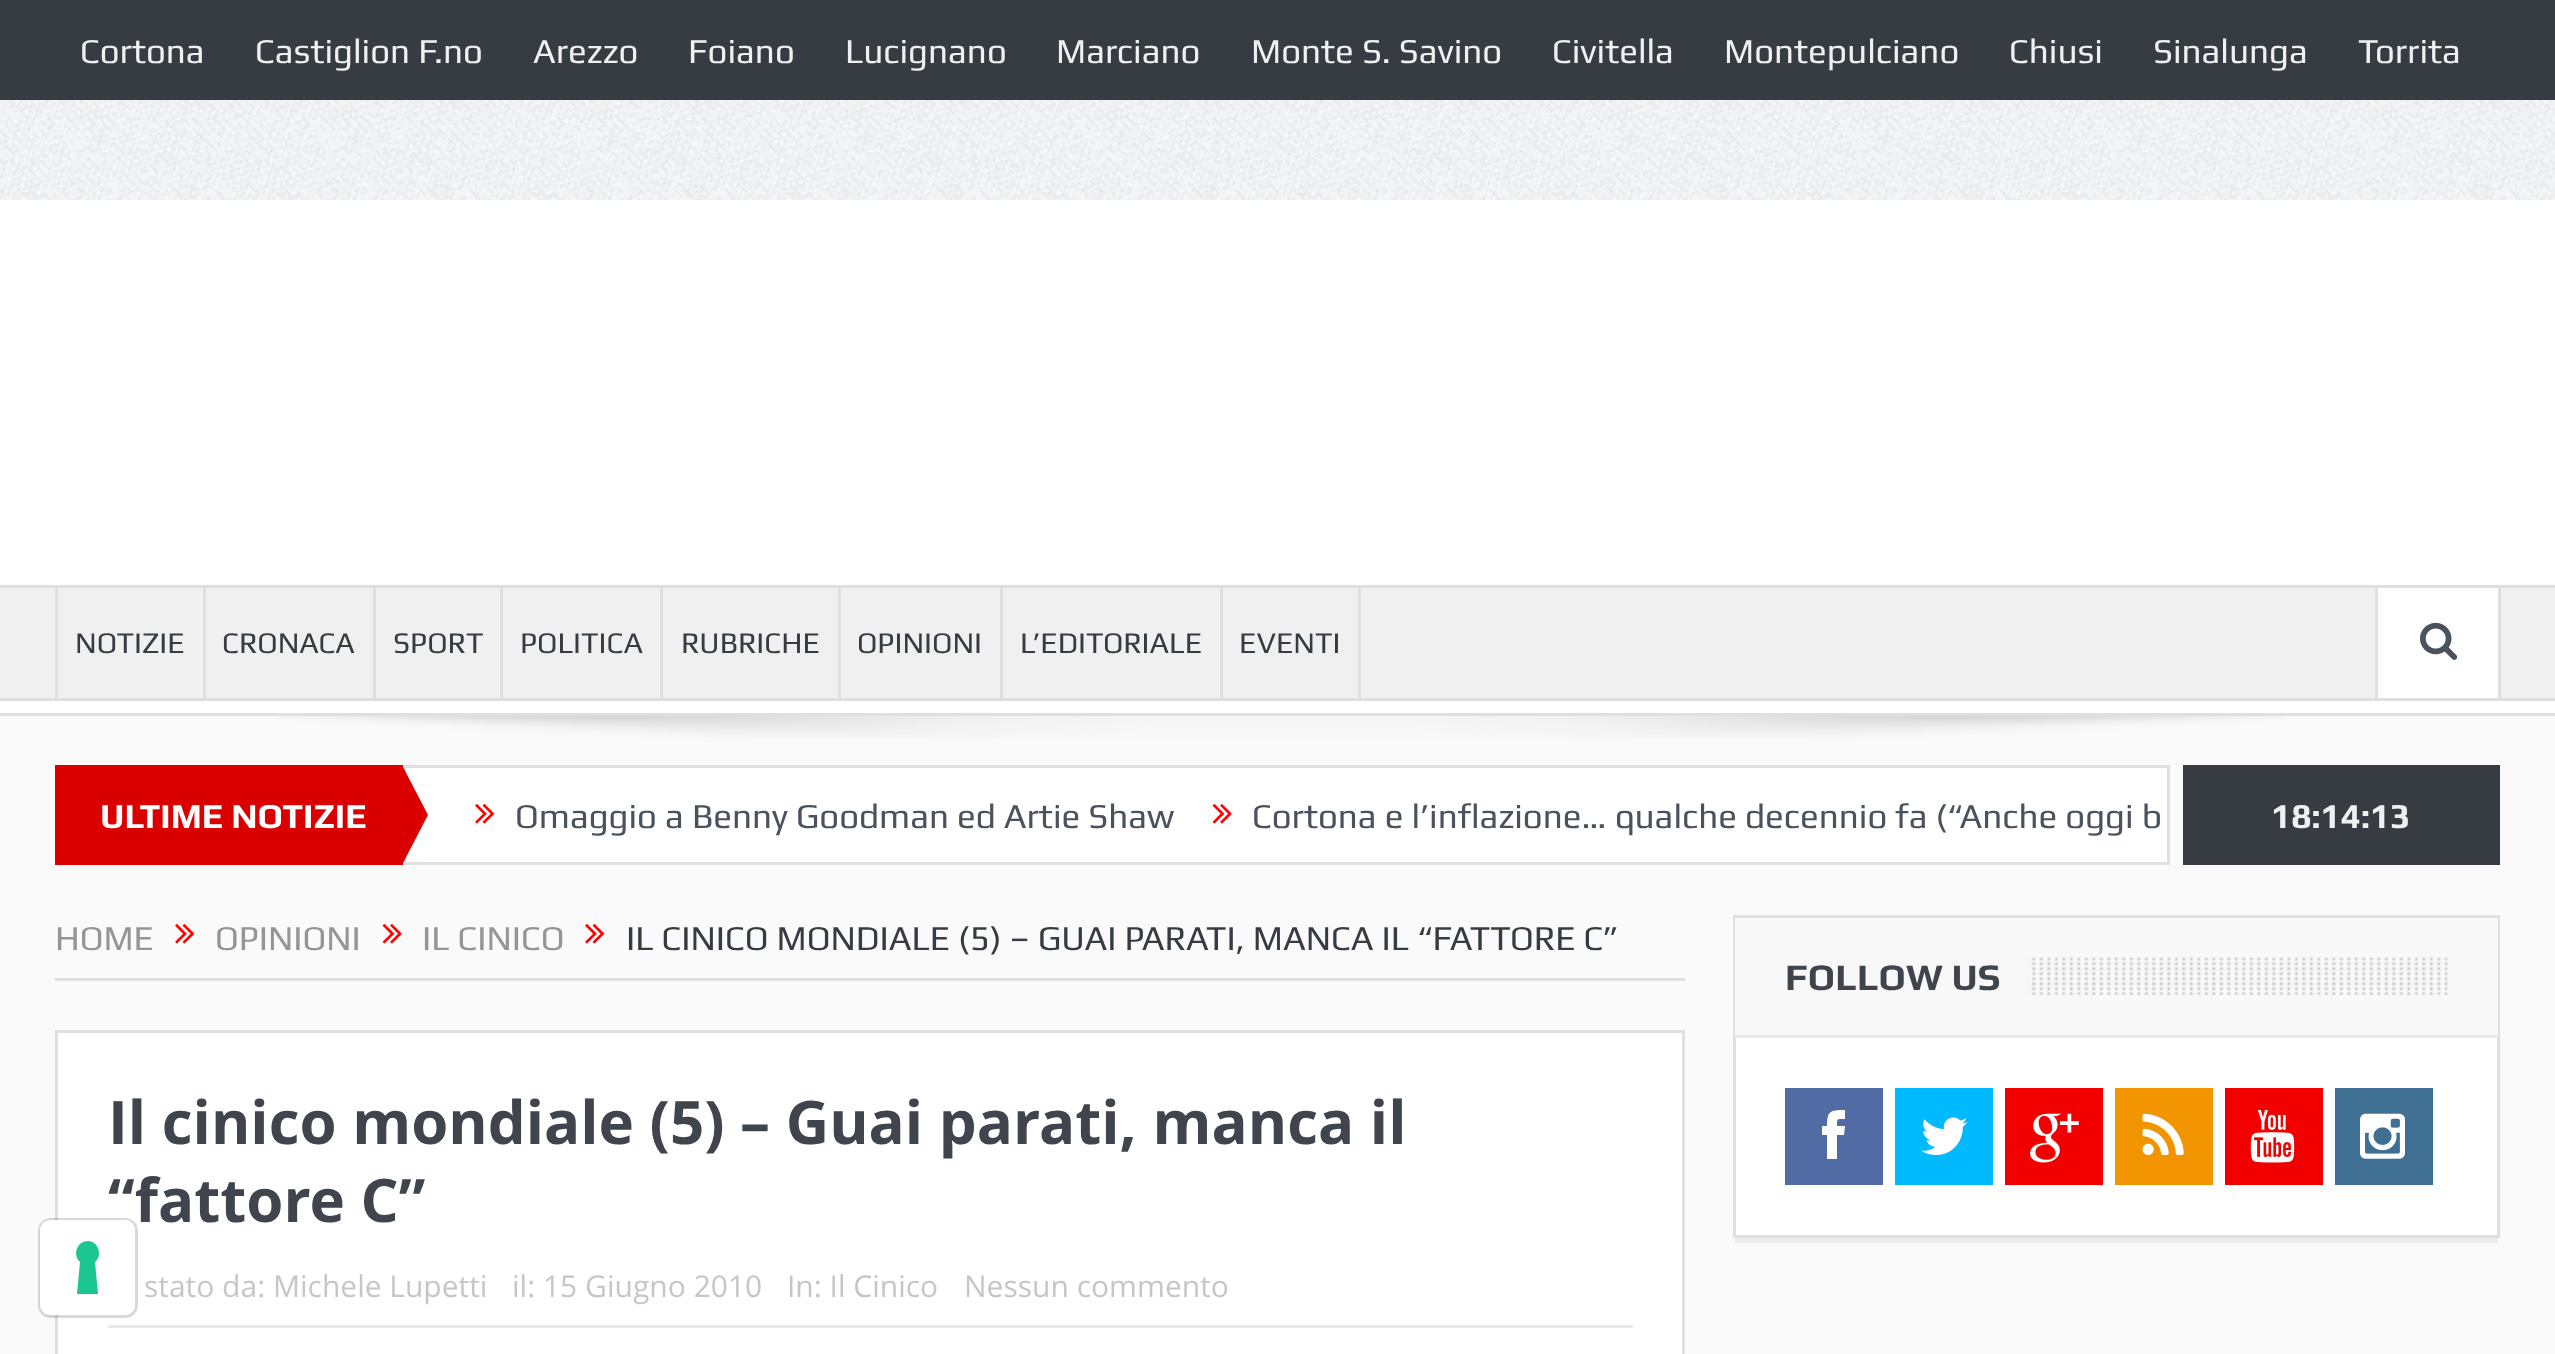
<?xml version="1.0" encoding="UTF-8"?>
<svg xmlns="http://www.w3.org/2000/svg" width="2555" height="1354">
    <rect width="100%" height="100%" fill="#FFFFFF"/>
    <image x="0" y="100" width="2555" height="100" href="img_01.png"/>
    <rect x="0" y="0" width="2555" height="100" fill="#373C43"/>
    <text x="80" y="63" font-family="Play" font-size="35" fill="#F0F0F0">Cortona</text>
    <text x="255" y="63" font-family="Play" font-size="35" fill="#F0F0F0">Castiglion F.no</text>
    <text x="533" y="63" font-family="Play" font-size="35" fill="#F0F0F0">Arezzo</text>
    <text x="688" y="63" font-family="Play" font-size="35" fill="#F0F0F0">Foiano</text>
    <text x="845" y="63" font-family="Play" font-size="35" fill="#F0F0F0">Lucignano</text>
    <text x="1056" y="63" font-family="Play" font-size="35" fill="#F0F0F0">Marciano</text>
    <text x="1251" y="63" font-family="Play" font-size="35" fill="#F0F0F0">Monte S. Savino</text>
    <text x="1552" y="63" font-family="Play" font-size="35" fill="#F0F0F0">Civitella</text>
    <text x="1724" y="63" font-family="Play" font-size="35" fill="#F0F0F0">Montepulciano</text>
    <text x="2009" y="63" font-family="Play" font-size="35" fill="#F0F0F0">Chiusi</text>
    <text x="2153" y="63" font-family="Play" font-size="35" fill="#F0F0F0">Sinalunga</text>
    <text x="2358" y="63" font-family="Play" font-size="35" fill="#F0F0F0">Torrita</text>
    <rect x="0" y="585" width="2555" height="3" fill="#DFDFDF"/>
    <rect x="0" y="713" width="2555" height="3" fill="#DFDFDF"/>
    <rect x="0" y="588" width="2555" height="110" fill="#F0F0F0"/>
    <rect x="0" y="698" width="2555" height="3" fill="#DFDFDF"/>
    <rect x="55" y="588" width="3" height="110" fill="#DFDFDF"/>
    <text x="75" y="653" font-family="Play" font-size="30" fill="#373C43">NOTIZIE</text>
    <rect x="203" y="588" width="3" height="110" fill="#DFDFDF"/>
    <text x="222" y="653" font-family="Play" font-size="30" fill="#373C43">CRONACA</text>
    <rect x="373" y="588" width="3" height="110" fill="#DFDFDF"/>
    <text x="393" y="653" font-family="Play" font-size="30" fill="#373C43">SPORT</text>
    <rect x="500" y="588" width="3" height="110" fill="#DFDFDF"/>
    <text x="520" y="653" font-family="Play" font-size="30" fill="#373C43">POLITICA</text>
    <rect x="660" y="588" width="3" height="110" fill="#DFDFDF"/>
    <text x="681" y="653" font-family="Play" font-size="30" fill="#373C43">RUBRICHE</text>
    <rect x="838" y="588" width="3" height="110" fill="#DFDFDF"/>
    <text x="857" y="653" font-family="Play" font-size="30" fill="#373C43">OPINIONI</text>
    <rect x="1000" y="588" width="3" height="110" fill="#DFDFDF"/>
    <text x="1020" y="653" font-family="Play" font-size="30" fill="#373C43">L’EDITORIALE</text>
    <rect x="1358" y="588" width="3" height="110" fill="#DFDFDF"/>
    <rect x="1220" y="588" width="3" height="110" fill="#DFDFDF"/>
    <text x="1239" y="653" font-family="Play" font-size="30" fill="#373C43">EVENTI</text>
    <rect x="2378" y="588" width="120" height="110" fill="#FFFFFF"/>
    <rect x="2498" y="588" width="3" height="110" fill="#DFDFDF"/>
    <rect x="2375" y="588" width="3" height="110" fill="#DFDFDF"/>
    <image x="2420" y="622" width="38" height="38" href="img_02.png"/>
    <rect x="0" y="716" width="2555" height="638" fill="#FAFAFA"/>
    <image x="277" y="716" width="2009" height="22" href="img_03.png"/>
    <rect x="55" y="765" width="348" height="100" fill="#DB0000"/>
    <text x="100" y="828" font-family="Play" font-size="35" font-weight="700" fill="#FFFFFF">ULTIME NOTIZIE</text>
    <rect x="404.5" y="766.5" width="1764" height="97" fill="#FFFFFF" stroke="#DFDFDF" stroke-width="3"/>
    <path d="M 402 865 V 765 L 428 815 Z" fill="#DB0000"/>
    <image x="475" y="804" width="20" height="20" href="img_04.png"/>
    <text x="515" y="828" font-family="Play" font-size="35" fill="#4A525D">Omaggio a Benny Goodman ed Artie Shaw</text>
    <image x="1212" y="804" width="20" height="20" href="img_05.png"/>
    <text x="1252" y="828" font-family="Play" font-size="35" fill="#4A525D">Cortona e l’inflazione… qualche decennio fa (“Anche oggi b</text>
    <rect x="2183" y="765" width="317" height="100" fill="#373C43"/>
    <text x="2271" y="828" font-family="Play" font-size="35" font-weight="700" fill="#F0F0F0">18:14:13</text>
    <rect x="55" y="978" width="1630" height="3" fill="#E0E0E0"/>
    <text x="55" y="950" font-family="Play" font-size="35" fill="#959595">HOME</text>
    <image x="175" y="924" width="20" height="20" href="img_06.png"/>
    <text x="215" y="950" font-family="Play" font-size="35" fill="#959595">OPINIONI</text>
    <image x="382" y="924" width="20" height="20" href="img_07.png"/>
    <text x="422" y="950" font-family="Play" font-size="35" fill="#959595">IL CINICO</text>
    <image x="585" y="924" width="20" height="20" href="img_06.png"/>
    <text x="626" y="950" font-family="Play" font-size="35" fill="#373C43">IL CINICO MONDIALE (5) – GUAI PARATI, MANCA IL “FATTORE C”</text>
    <rect x="56.5" y="1031.5" width="1627" height="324" fill="#FFFFFF" stroke="#E0E0E0" stroke-width="3"/>
    <text font-family="Open Sans" font-size="60" font-weight="700" fill="#40454D">
        <tspan x="108" y="1144">Il cinico mondiale (5) – Guai parati, manca il</tspan>
        <tspan x="108" y="1222">“fattore C”</tspan>
    </text>
    <rect x="108" y="1325" width="1525" height="3" fill="#EAEAEA"/>
    <text x="144" y="1297" font-family="Open Sans" font-size="30" fill="#C6C6C6">stato da: Michele Lupetti</text>
    <text x="512" y="1297" font-family="Open Sans" font-size="30" fill="#C6C6C6">il: 15 Giugno 2010</text>
    <text x="787" y="1297" font-family="Open Sans" font-size="30" fill="#C6C6C6">In: Il Cinico</text>
    <text x="964" y="1297" font-family="Open Sans" font-size="30" fill="#C6C6C6">Nessun commento</text>
    <rect x="1736" y="1038" width="761" height="197" fill="#FFFFFF"/>
    <rect x="1734.5" y="916.5" width="764" height="320" fill="none" stroke="#E0E0E0" stroke-width="3"/>
    <rect x="1735" y="918" width="763" height="117" fill="#F8F8F8"/>
    <rect x="1735" y="1035" width="763" height="3" fill="#EAEAEA"/>
    <image x="2028" y="957" width="420" height="38" href="img_08.png"/>
    <text x="1785" y="990" font-family="Play" font-size="37.5" font-weight="700" fill="#40454D">FOLLOW US</text>
    <rect x="1785" y="1088" width="98" height="97" fill="#516CA4"/>
    <path d="M 1837 1126 H 1845 L 1844 1135 H 1837 V 1159 H 1827 V 1135 H 1822 V 1126 H 1827 C 1827 1111 1830 1110 1845 1110 V 1119 C 1837 1119 1837 1118 1837 1126 Z" fill="#FFFFFF"/>
    <rect x="1895" y="1088" width="98" height="97" fill="#00BAFF"/>
    <image x="1921" y="1117" width="47" height="38" href="img_09.png"/>
    <rect x="2005" y="1088" width="98" height="97" fill="#F20000"/>
    <image x="2030" y="1113" width="49" height="50" href="img_10.png"/>
    <rect x="2115" y="1088" width="98" height="97" fill="#F29400"/>
    <image x="2142" y="1113" width="42" height="42" href="img_11.png"/>
    <rect x="2225" y="1088" width="98" height="97" fill="#F20000"/>
    <image x="2250" y="1110" width="45" height="53" href="img_12.png"/>
    <rect x="2335" y="1088" width="98" height="97" fill="#406F94"/>
    <image x="2360" y="1113" width="45" height="46" href="img_13.png"/>
    <rect x="1735" y="1238" width="763" height="5" fill="#EBEBEB"/>
    <rect x="39.5" y="1219.5" width="97" height="97" rx="11.5" fill="none" stroke="#000000" stroke-opacity="0.15" stroke-width="3"/>
    <rect x="40" y="1220" width="95" height="95" rx="10" fill="#FFFFFF"/>
    <path d="M 88 1241 C 98 1241 103 1255 95 1262 L 98 1294 H 77 L 80 1262 C 72 1255 77 1241 88 1241 Z" fill="#1CC691" fill-rule="evenodd"/>
</svg>
